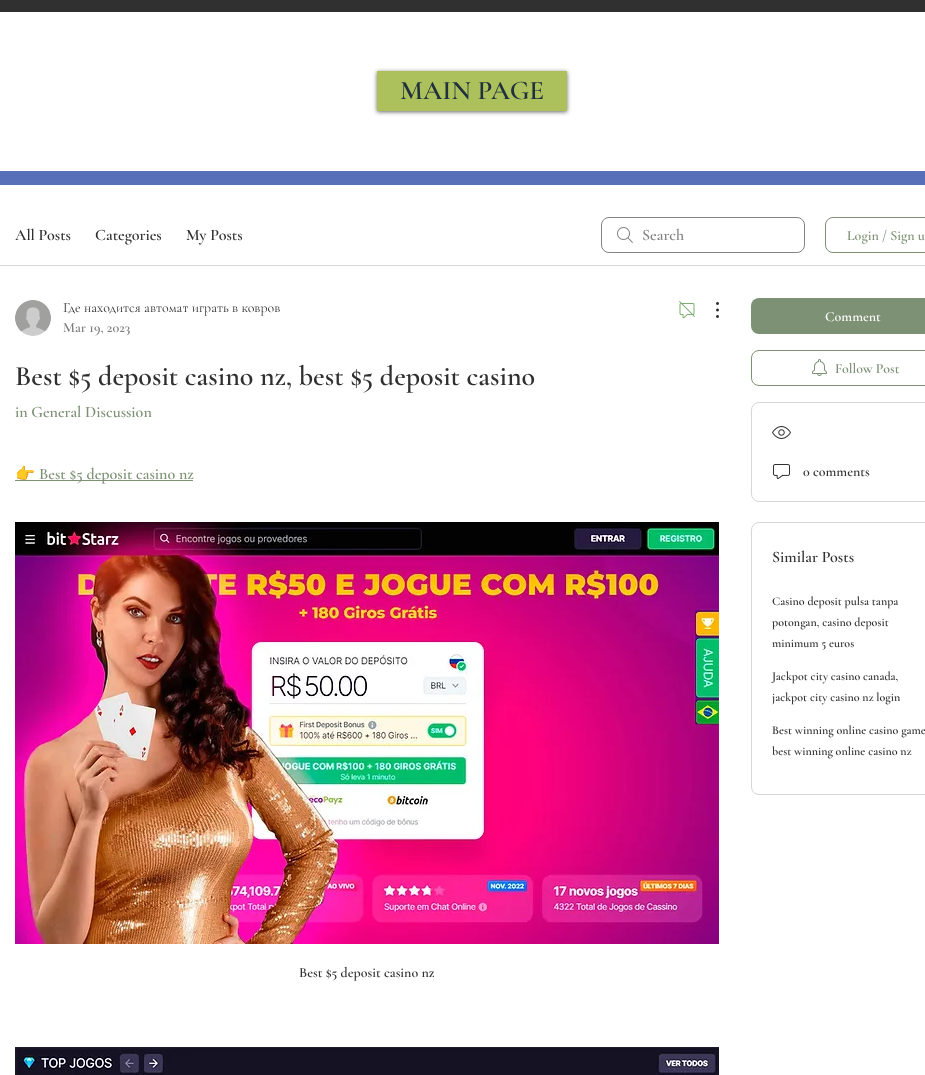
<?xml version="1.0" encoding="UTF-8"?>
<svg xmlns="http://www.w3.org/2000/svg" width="925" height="1075">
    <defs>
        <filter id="blur1" x="-50%" y="-200%" width="200%" height="500%"><feGaussianBlur stdDeviation="2"/></filter>
    </defs>
    <rect width="100%" height="100%" fill="#FFFFFF"/>
    <rect x="0" y="0" width="925" height="12" fill="#303030"/>
    <rect x="377" y="72" width="190" height="40" fill="#000000" fill-opacity="0.6" filter="url(#blur1)"/>
    <rect x="377" y="71" width="190" height="40" fill="#ACC05B"/>
    <text x="400" y="99" font-family="Cormorant Garamond" font-size="27" font-weight="600" fill="#20303C">MAIN PAGE</text>
    <rect x="0" y="171" width="925" height="14" fill="#566FB8"/>
    <rect x="0" y="265" width="925" height="1" fill="#D6D6D6"/>
    <text x="15" y="240" font-family="Cormorant Garamond" font-size="16" font-weight="600" fill="#303030">All Posts</text>
    <text x="95" y="240" font-family="Cormorant Garamond" font-size="16" font-weight="600" fill="#303030">Categories</text>
    <text x="186" y="240" font-family="Cormorant Garamond" font-size="16" font-weight="600" fill="#303030">My Posts</text>
    <image x="617" y="227" width="16" height="16" href="img_01.png"/>
    <rect x="601.5" y="217.5" width="203" height="35" rx="7.5" fill="none" stroke="#838383"/>
    <text x="642" y="240" font-family="Cormorant Garamond" font-size="16" font-weight="600" fill="#838383">Search</text>
    <rect x="825.5" y="217.5" width="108" height="35" rx="7.5" fill="none" stroke="#7D9174"/>
    <text x="847" y="240" font-family="Cormorant Garamond" font-size="14" font-weight="600" fill="#7D9174">Login / Sign u</text>
    <image x="15" y="300" width="36" height="36" href="img_02.png"/>
    <text x="63" y="312" font-family="Cormorant Garamond" font-size="14" fill="#303030">Где находится автомат играть в ковров</text>
    <text x="63" y="332" font-family="Cormorant Garamond" font-size="14" font-weight="600" fill="#7B7B7B">Mar 19, 2023</text>
    <image x="679" y="301" width="16" height="18" href="img_03.png"/>
    <image x="716" y="302" width="3" height="16" href="img_04.png"/>
    <text x="15" y="385" font-family="Cormorant Garamond" font-size="28" font-weight="600" fill="#303030">Best $5 deposit casino nz, best $5 deposit casino</text>
    <text x="15" y="417" font-family="Cormorant Garamond" font-size="16" font-weight="600" fill="#7D9174">in General Discussion</text>
    <rect x="15" y="480" width="178" height="1" fill="#7D9174"/>
    <text x="15" y="479" font-family="Noto Color Emoji" font-size="16" fill="#7D9174">👉</text>
    <text x="39" y="479" font-family="Cormorant Garamond" font-size="16" font-weight="600" fill="#7D9174">Best $5 deposit casino nz</text>
    <image x="15" y="522" width="704" height="422" href="img_05.png"/>
    <text x="299" y="977" font-family="Cormorant Garamond" font-size="14" font-weight="600" fill="#303030">Best $5 deposit casino nz</text>
    <image x="15" y="1047" width="704" height="28" href="img_06.png"/>
    <rect x="751" y="298" width="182" height="36" rx="8" fill="#7D9174"/>
    <text x="825" y="321" font-family="Cormorant Garamond" font-size="14" font-weight="600" fill="#FFFFFF">Comment</text>
    <rect x="751.5" y="350.5" width="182" height="35" rx="7.5" fill="none" stroke="#7D9174"/>
    <image x="812" y="359" width="15" height="17" href="img_07.png"/>
    <text x="835" y="373" font-family="Cormorant Garamond" font-size="14" font-weight="600" fill="#7D9174">Follow Post</text>
    <rect x="751.5" y="402.5" width="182" height="99" rx="7.5" fill="none" stroke="#D6D6D6"/>
    <image x="772" y="426" width="19" height="13" href="img_08.png"/>
    <image x="773" y="464" width="17" height="15" href="img_09.png"/>
    <text x="803" y="476" font-family="Cormorant Garamond" font-size="14" font-weight="600" fill="#303030">0 comments</text>
    <rect x="751.5" y="522.5" width="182" height="272" rx="7.5" fill="none" stroke="#D6D6D6"/>
    <text x="772" y="562" font-family="Cormorant Garamond" font-size="16" font-weight="600" fill="#303030">Similar Posts</text>
    <text font-family="Cormorant Garamond" font-size="12" font-weight="600" fill="#303030">
        <tspan x="772" y="605">Casino deposit pulsa tanpa</tspan>
        <tspan x="772" y="626">potongan, casino deposit</tspan>
        <tspan x="772" y="647">minimum 5 euros</tspan>
    </text>
    <text font-family="Cormorant Garamond" font-size="12" font-weight="600" fill="#303030">
        <tspan x="772" y="680">Jackpot city casino canada,</tspan>
        <tspan x="772" y="701">jackpot city casino nz login</tspan>
    </text>
    <text font-family="Cormorant Garamond" font-size="12" font-weight="600" fill="#303030">
        <tspan x="772" y="734">Best winning online casino game</tspan>
        <tspan x="772" y="755">best winning online casino nz</tspan>
    </text>
</svg>
